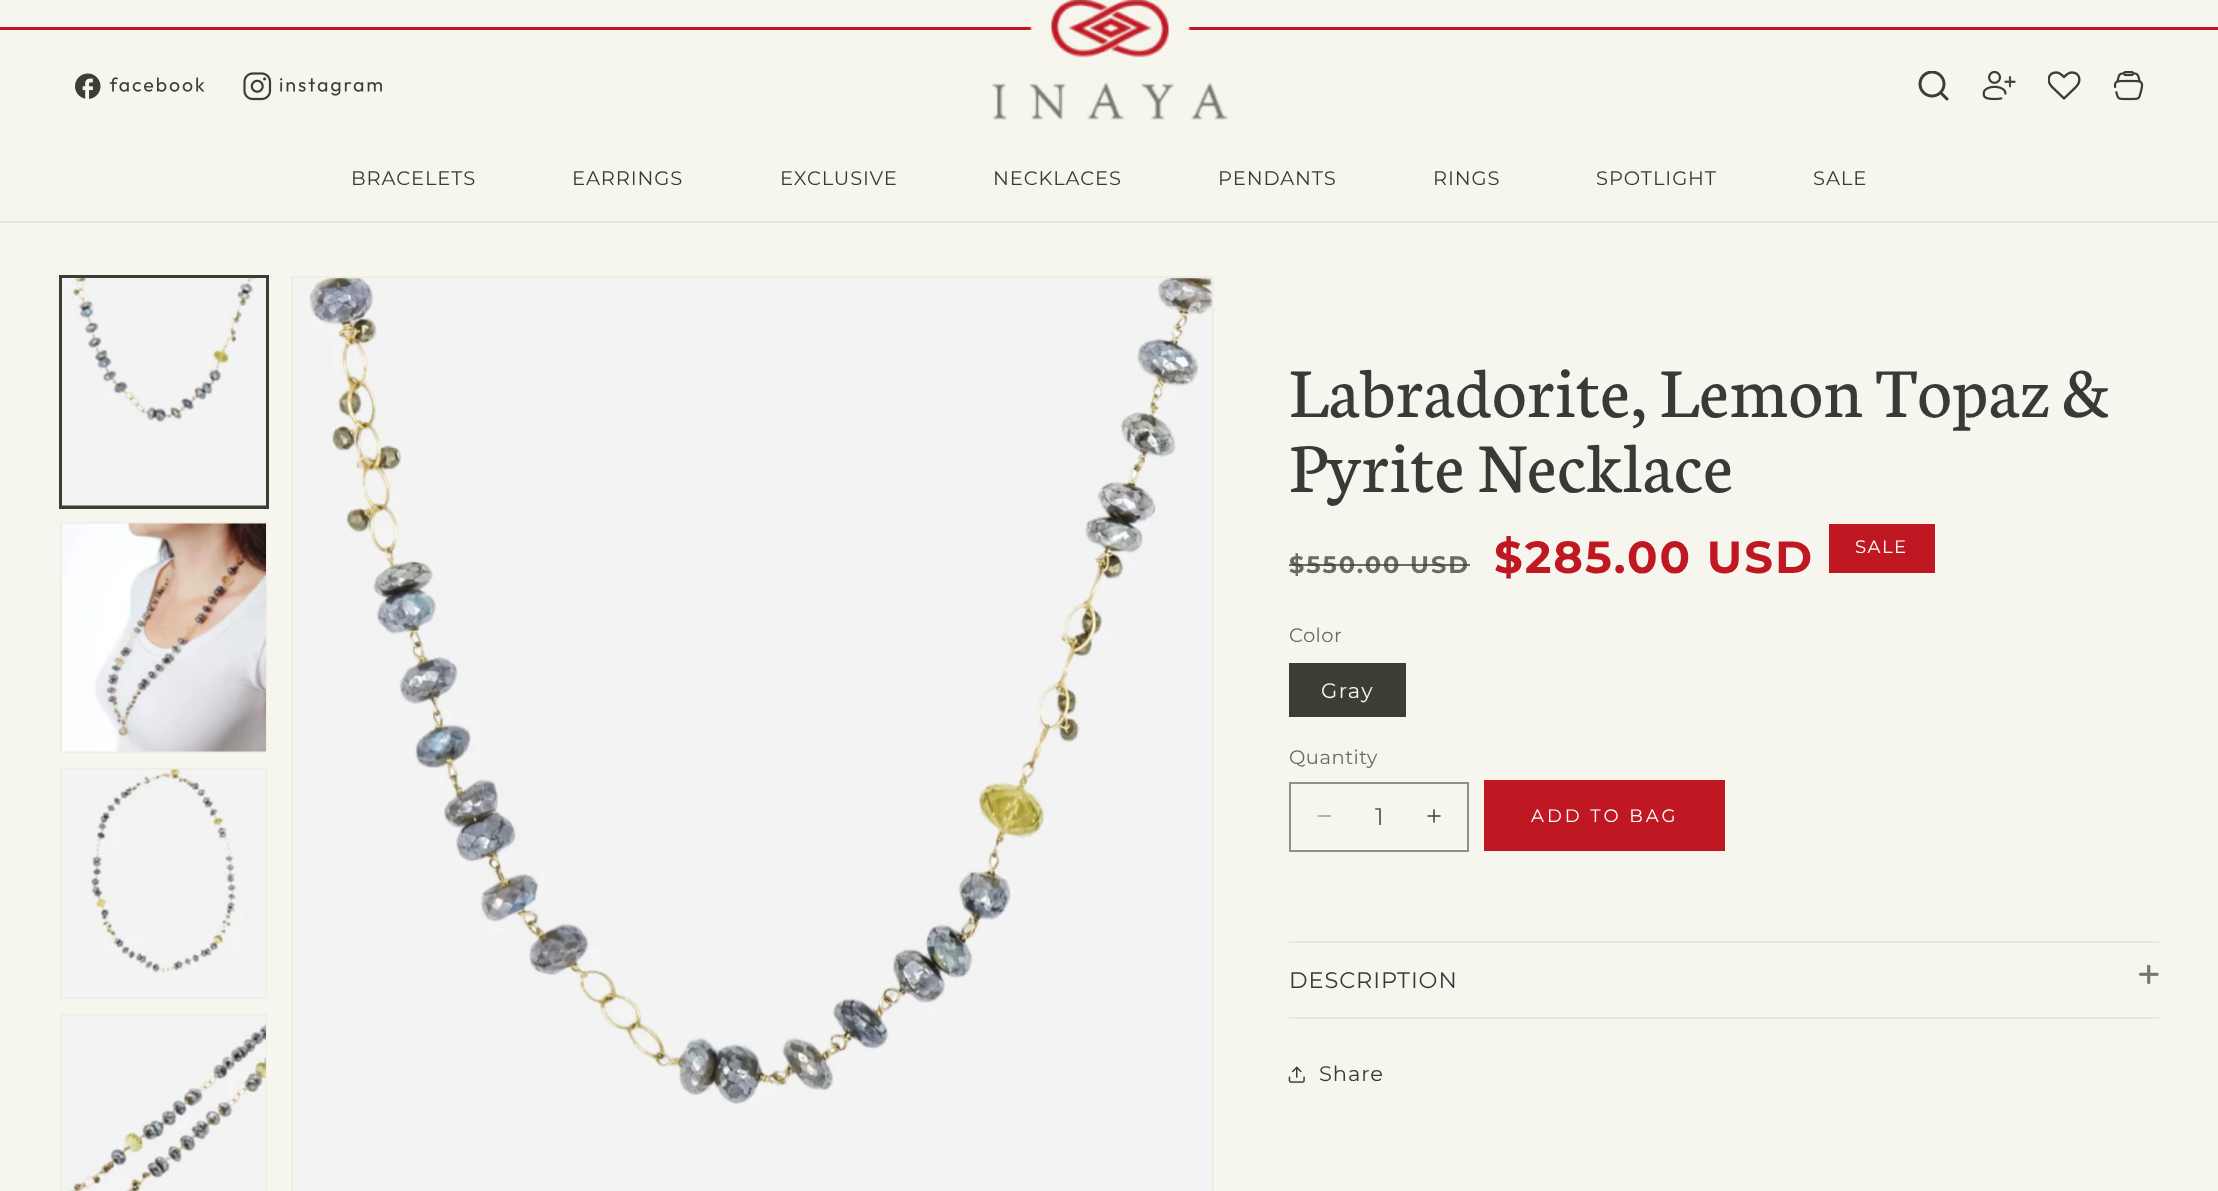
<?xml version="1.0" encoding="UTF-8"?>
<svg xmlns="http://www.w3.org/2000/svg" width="2218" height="1191">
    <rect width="100%" height="100%" fill="#F6F6EE"/>
    <rect x="0" y="221" width="2218" height="2" fill="#E7E7DF"/>
    <rect x="0" y="27" width="2218" height="3" fill="#C01823"/>
    <image x="75" y="73" width="130" height="26" href="img_01.png"/>
    <image x="243" y="72" width="139" height="29" href="img_02.png"/>
    <image x="991" y="0" width="238" height="121" href="img_03.png"/>
    <image x="1918" y="71" width="31" height="30" href="img_04.png"/>
    <image x="1982" y="71" width="34" height="30" href="img_05.png"/>
    <image x="2048" y="71" width="33" height="29" href="img_06.png"/>
    <image x="2113" y="71" width="31" height="30" href="img_07.png"/>
    <text x="351" y="185" font-family="Montserrat" font-size="19.5" letter-spacing="0.9" fill="#393937">BRACELETS</text>
    <text x="572" y="185" font-family="Montserrat" font-size="19.5" letter-spacing="0.9" fill="#393937">EARRINGS</text>
    <text x="780" y="185" font-family="Montserrat" font-size="19.5" letter-spacing="0.9" fill="#393937">EXCLUSIVE</text>
    <text x="993" y="185" font-family="Montserrat" font-size="19.5" letter-spacing="0.9" fill="#393937">NECKLACES</text>
    <text x="1218" y="185" font-family="Montserrat" font-size="19.5" letter-spacing="0.9" fill="#393937">PENDANTS</text>
    <text x="1433" y="185" font-family="Montserrat" font-size="19.5" letter-spacing="0.9" fill="#393937">RINGS</text>
    <text x="1596" y="185" font-family="Montserrat" font-size="19.5" letter-spacing="0.9" fill="#393937">SPOTLIGHT</text>
    <text x="1813" y="185" font-family="Montserrat" font-size="19.5" letter-spacing="0.9" fill="#393937">SALE</text>
    <rect x="60" y="276" width="208" height="232" fill="none" stroke="#3C3D35" stroke-width="2"/>
    <rect x="61" y="277" width="205" height="229" fill="none" stroke="#3C3D35" stroke-width="2"/>
    <image x="62" y="278" width="204" height="228" href="img_08.png"/>
    <rect x="61" y="523" width="205" height="229" fill="none" stroke="#EDEDE5" stroke-width="2"/>
    <image x="62" y="523" width="204" height="229" href="img_09.png"/>
    <rect x="61" y="769" width="205" height="229" fill="none" stroke="#EDEDE5" stroke-width="2"/>
    <image x="62" y="769" width="204" height="229" href="img_10.png"/>
    <rect x="61" y="1015" width="205" height="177" fill="none" stroke="#EDEDE5" stroke-width="2"/>
    <image x="62" y="1015" width="204" height="176" href="img_11.png"/>
    <rect x="292" y="277" width="921" height="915" fill="none" stroke="#EDEDE5" stroke-width="2"/>
    <image x="293" y="278" width="919" height="913" href="img_12.png"/>
    <text font-family="Neuton" font-size="75" letter-spacing="0.9" fill="#393937">
        <tspan x="1289" y="417">Labradorite, Lemon Topaz &amp;</tspan>
        <tspan x="1289" y="492">Pyrite Necklace</tspan>
    </text>
    <text x="1289" y="573" font-family="Montserrat" font-size="24" font-weight="700" letter-spacing="2" fill="#6B6B63">$550.00 USD</text>
    <rect x="1289" y="564" width="181" height="2" fill="#3C3D35" fill-opacity="0.75"/>
    <text x="1494" y="573" font-family="Montserrat" font-size="45" font-weight="700" letter-spacing="2" fill="#C01823">$285.00 USD</text>
    <rect x="1829" y="524" width="106" height="49" fill="#C01823"/>
    <text x="1855" y="553" font-family="Montserrat" font-size="18" letter-spacing="1.5" fill="#FFFFFF">SALE</text>
    <text x="1289" y="642" font-family="Montserrat" font-size="19.5" letter-spacing="0.5" fill="#6B6B63">Color</text>
    <rect x="1289" y="663" width="117" height="54" fill="#3C3D35"/>
    <text x="1321" y="698" font-family="Montserrat" font-size="21" letter-spacing="1.5" fill="#F6F6EE">Gray</text>
    <text x="1289" y="764" font-family="Montserrat" font-size="19.5" letter-spacing="0.5" fill="#6B6B63">Quantity</text>
    <image x="1317" y="815" width="15" height="2" href="img_13.png"/>
    <image x="1427" y="809" width="14" height="14" href="img_14.png"/>
    <rect x="1290" y="783" width="178" height="68" fill="none" stroke="#909088" stroke-width="2"/>
    <text x="1375" y="825" font-family="Montserrat" font-size="24" fill="#585951">1</text>
    <rect x="1484" y="780" width="241" height="71" fill="#C01823"/>
    <text x="1531" y="822" font-family="Montserrat" font-size="18" letter-spacing="3" fill="#FFFFFF">ADD TO BAG</text>
    <rect x="1289" y="941" width="870" height="2" fill="#E7E7DF"/>
    <rect x="1289" y="1017" width="870" height="2" fill="#E7E7DF"/>
    <text x="1289" y="988" font-family="Montserrat" font-size="22.5" letter-spacing="0.9" fill="#393937">DESCRIPTION</text>
    <image x="2139" y="965" width="20" height="19" href="img_15.png"/>
    <image x="1288" y="1066" width="17" height="17" href="img_16.png"/>
    <text x="1319" y="1081" font-family="Montserrat" font-size="21" letter-spacing="0.9" fill="#393937">Share</text>
</svg>
